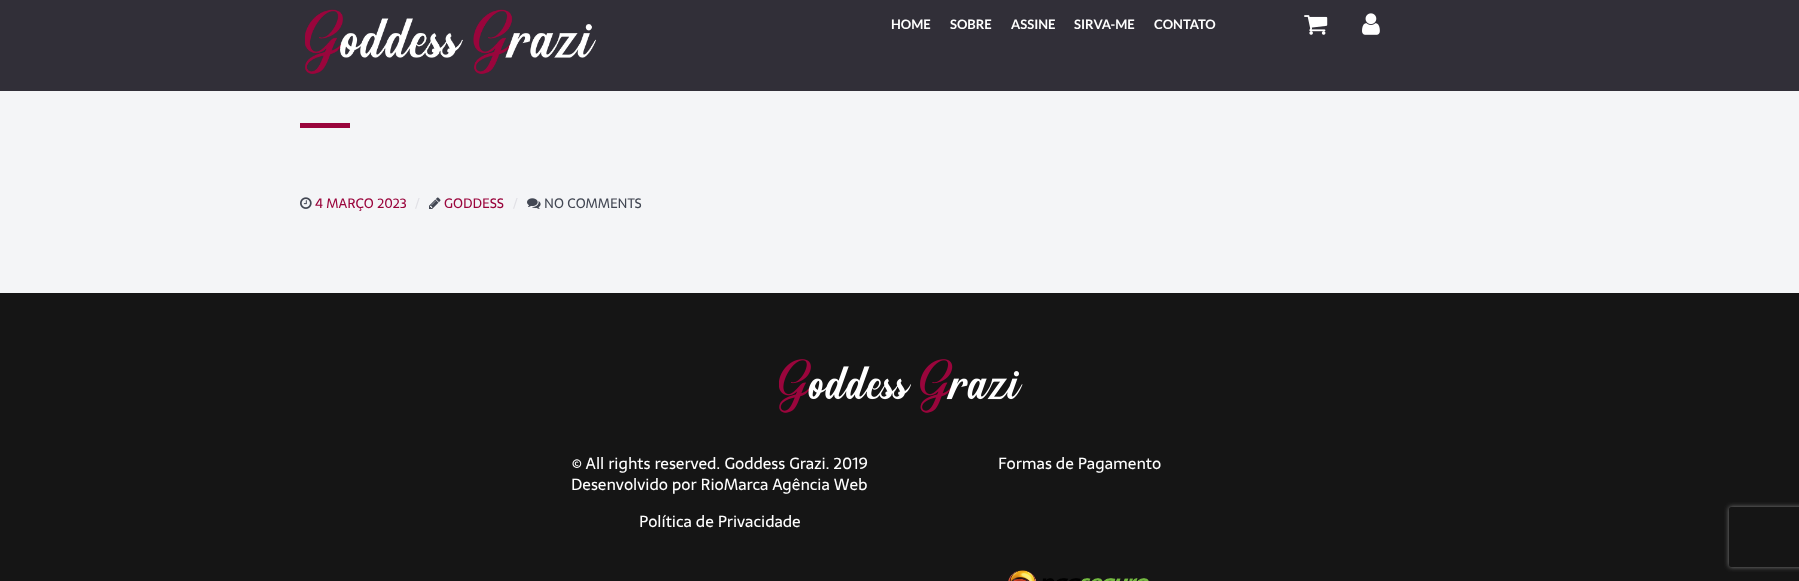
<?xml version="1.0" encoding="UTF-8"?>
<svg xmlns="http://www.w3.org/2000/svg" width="1799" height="581">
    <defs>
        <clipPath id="clip1"><path d="M 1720 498 H 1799 V 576 H 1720 Z M 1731 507 H 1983 C 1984 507 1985 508 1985 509 V 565 C 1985 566 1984 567 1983 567 H 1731 C 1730 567 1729 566 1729 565 V 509 C 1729 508 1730 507 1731 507 Z" clip-rule="evenodd"/></clipPath>
        <filter id="blur1" x="-50%" y="-200%" width="200%" height="500%"><feGaussianBlur stdDeviation="2.5"/></filter>
    </defs>
    <rect width="100%" height="100%" fill="#F4F5F7"/>
    <rect x="0" y="0" width="1799" height="91" fill="#312F38"/>
    <image x="305" y="9" width="291" height="65" href="img_01.png"/>
    <text x="891" y="29" font-family="Lato" font-size="13" font-weight="700" fill="#FFFFFF">HOME</text>
    <text x="950" y="29" font-family="Lato" font-size="13" font-weight="700" fill="#FFFFFF">SOBRE</text>
    <text x="1011" y="29" font-family="Lato" font-size="13" font-weight="700" fill="#FFFFFF">ASSINE</text>
    <text x="1074" y="29" font-family="Lato" font-size="13" font-weight="700" fill="#FFFFFF">SIRVA-ME</text>
    <text x="1154" y="29" font-family="Lato" font-size="13" font-weight="700" fill="#FFFFFF">CONTATO</text>
    <image x="1304" y="15" width="24" height="20" href="img_02.png"/>
    <image x="1362" y="13" width="18" height="22" href="img_03.png"/>
    <rect x="300" y="123" width="50" height="5" fill="#9A053C"/>
    <image x="300" y="197" width="12" height="12" href="img_04.png"/>
    <text x="315" y="208" font-family="Sarala" font-size="13.5" fill="#9A053C">4 MARÇO 2023</text>
    <text x="415" y="208" font-family="Sarala" font-size="13.5" fill="#E0E0E5">/</text>
    <image x="429" y="197" width="12" height="12" href="img_05.png"/>
    <text x="444" y="208" font-family="Sarala" font-size="13.5" fill="#9A053C">GODDESS</text>
    <text x="513" y="208" font-family="Sarala" font-size="13.5" fill="#E0E0E5">/</text>
    <image x="527" y="198" width="14" height="11" href="img_06.png"/>
    <text x="544" y="208" font-family="Sarala" font-size="13.5" fill="#424753">NO COMMENTS</text>
    <rect x="0" y="293" width="1799" height="288" fill="#151515"/>
    <image x="779" y="359" width="244" height="54" href="img_07.png"/>
    <text x="572" y="469" font-family="Sarala" font-size="16" fill="#FFFFFF">© All rights reserved. Goddess Grazi. 2019</text>
    <text x="571" y="490" font-family="Sarala" font-size="16" fill="#FFFFFF">Desenvolvido por RioMarca Agência Web</text>
    <text x="639" y="527" font-family="Sarala" font-size="16" fill="#FFFFFF">Política de Privacidade</text>
    <text x="998" y="469" font-family="Sarala" font-size="16" fill="#FFFFFF">Formas de Pagamento</text>
    <image x="1008" y="570" width="141" height="11" href="img_08.png"/>
    <g clip-path="url(#clip1)">
        <rect x="1729" y="507" width="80" height="60" rx="2" fill="#808080" filter="url(#blur1)"/>
    </g>
</svg>
